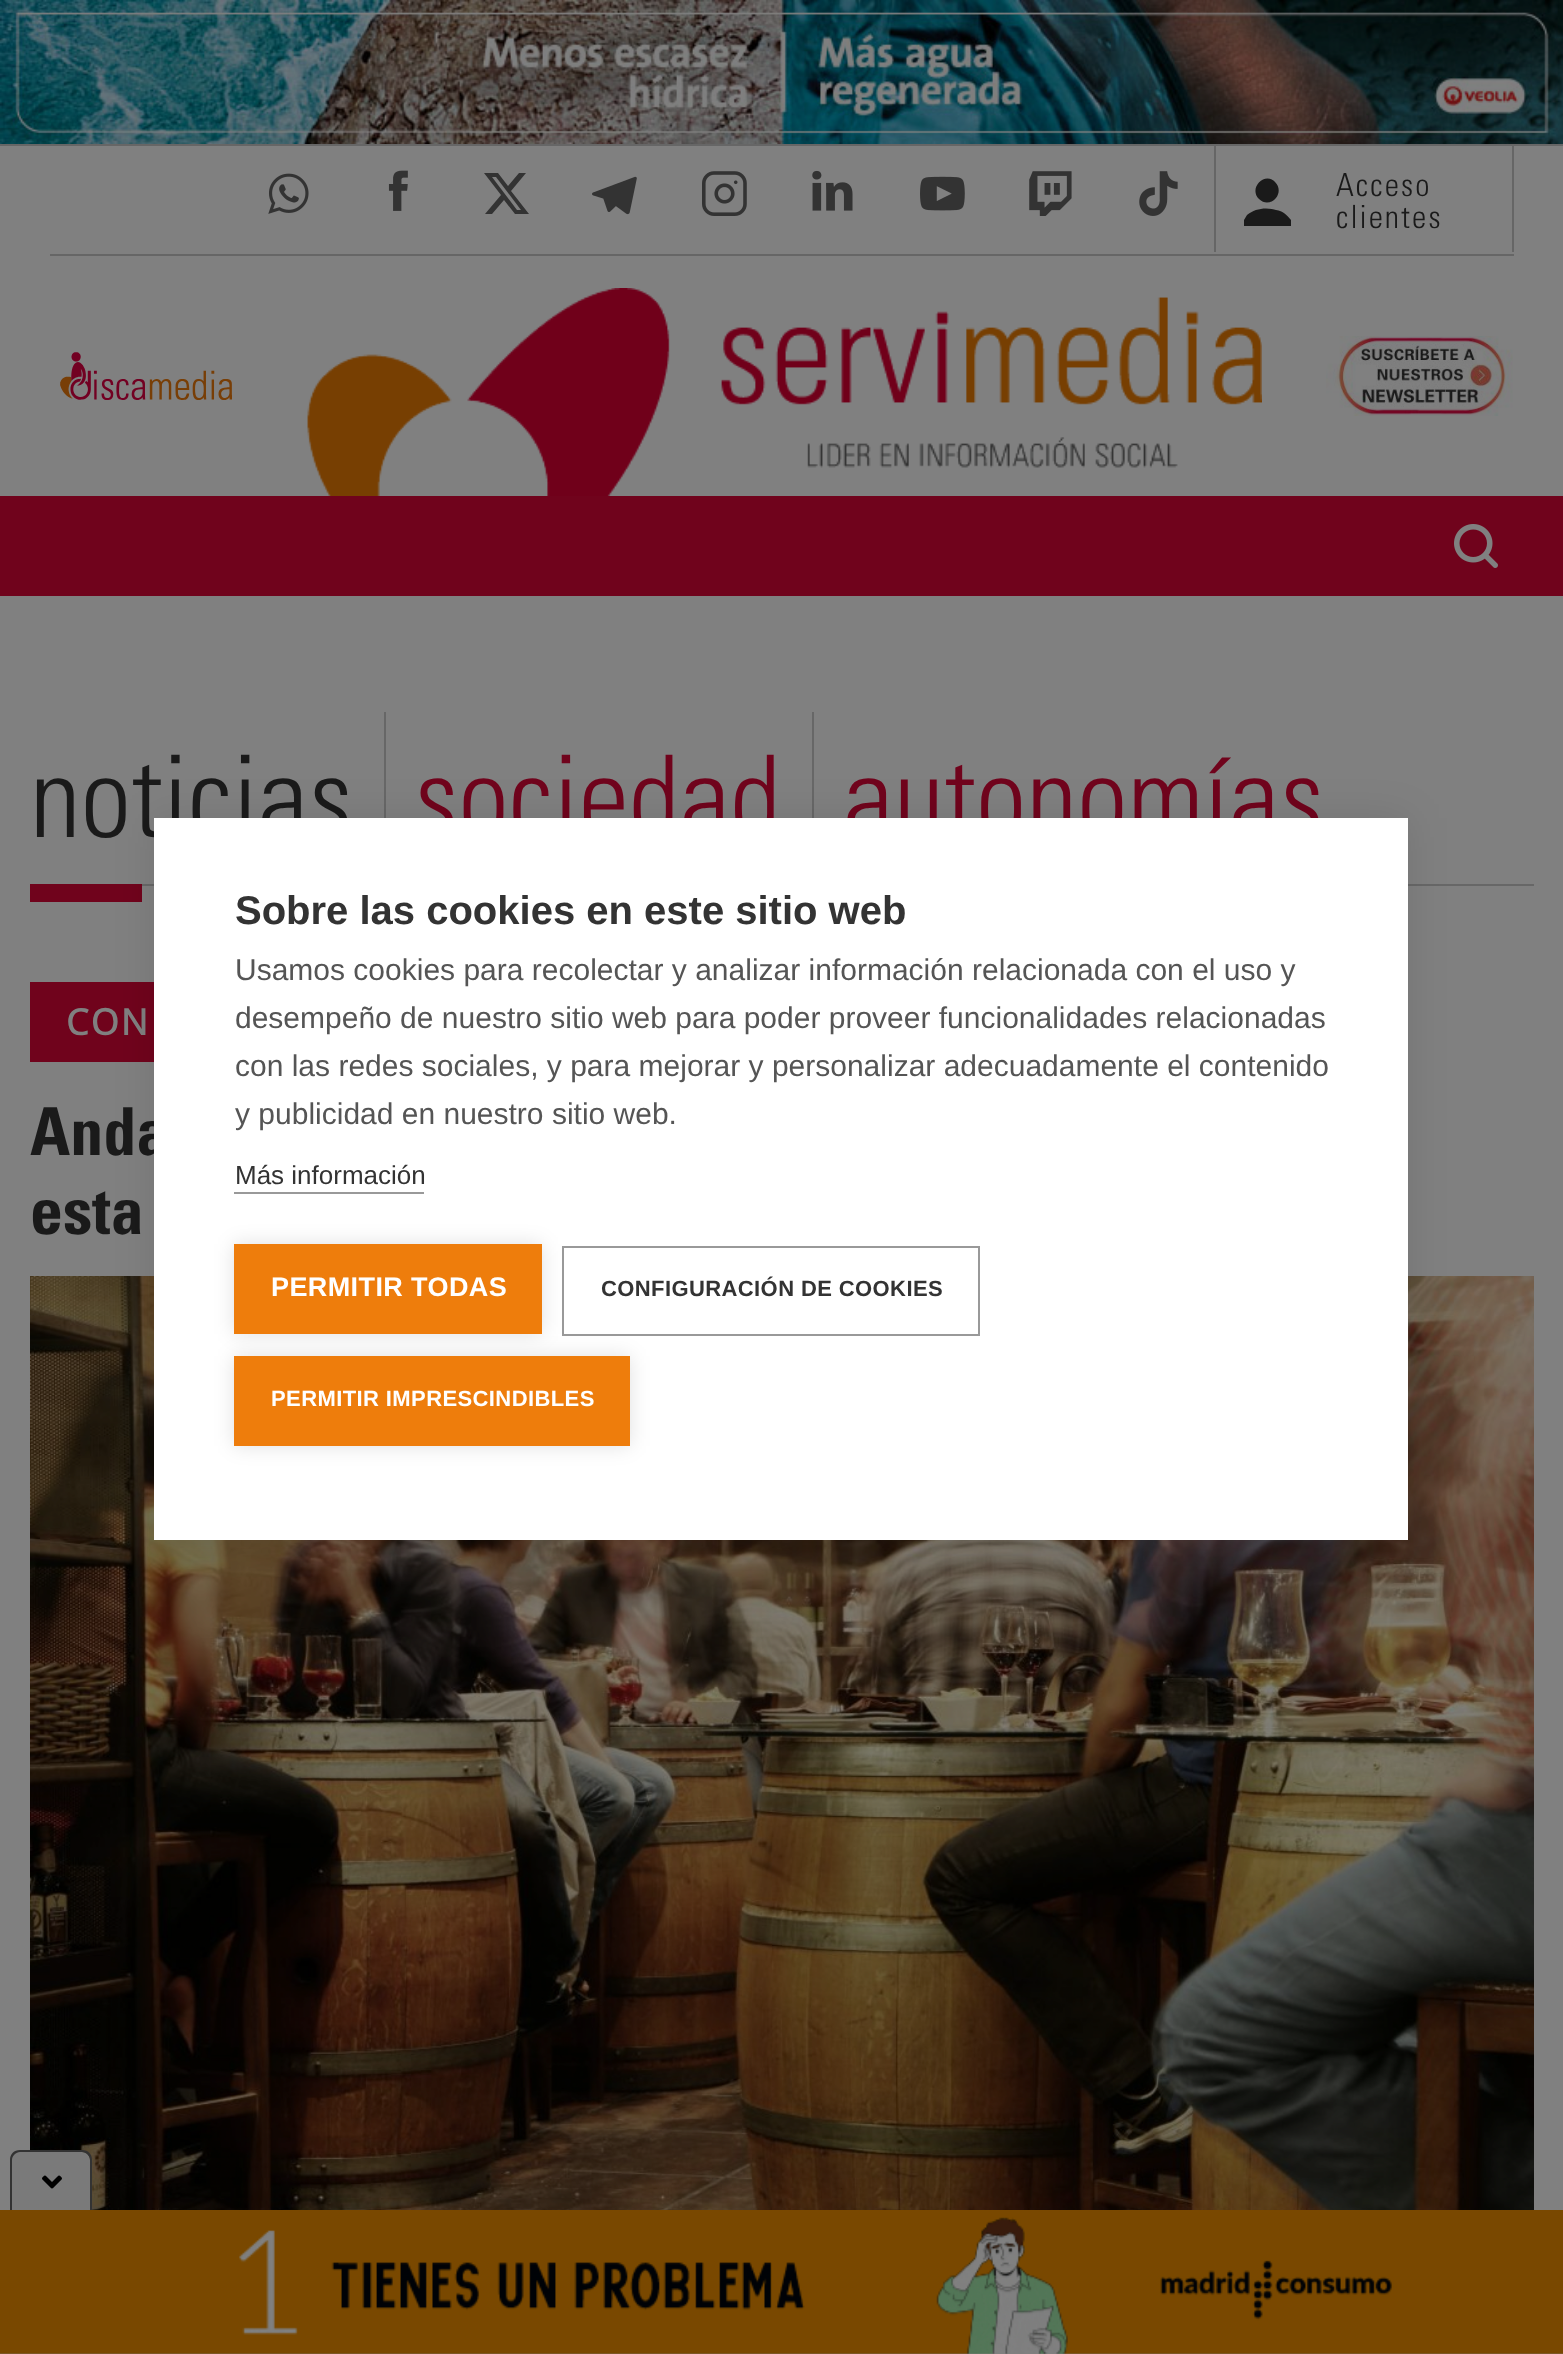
<?xml version="1.0" encoding="UTF-8"?>
<svg xmlns="http://www.w3.org/2000/svg" width="1563" height="2354">
    <defs>
        <filter id="blur1" x="-50%" y="-200%" width="200%" height="500%"><feGaussianBlur stdDeviation="20"/></filter>
        <filter id="blur2" x="-50%" y="-200%" width="200%" height="500%"><feGaussianBlur stdDeviation="10"/></filter>
    </defs>
    <rect width="100%" height="100%" fill="#808080"/>
    <rect x="0" y="144" width="1563" height="2" fill="#666666"/>
    <image x="0" y="0" width="1563" height="144" href="img_01.png"/>
    <rect x="50" y="254" width="1464" height="2" fill="#666666"/>
    <image x="268" y="173" width="41" height="41" href="img_02.png"/>
    <image x="388" y="170" width="20" height="41" href="img_03.png"/>
    <path d="M 519 173 H 526 L 511 191 L 529 214 H 515 L 504 200 L 492 214 H 485 L 501 195 L 484 173 H 498 L 508 186 Z M 517 210 H 521 L 496 177 H 492 Z" fill="#333333"/>
    <image x="592" y="176" width="45" height="39" href="img_04.png"/>
    <image x="702" y="171" width="45" height="45" href="img_05.png"/>
    <image x="812" y="170" width="41" height="41" href="img_06.png"/>
    <image x="920" y="176" width="45" height="35" href="img_07.png"/>
    <image x="1029" y="171" width="43" height="45" href="img_08.png"/>
    <image x="1139" y="171" width="39" height="45" href="img_09.png"/>
    <rect x="1512" y="146" width="2" height="106" fill="#666666"/>
    <rect x="1214" y="146" width="2" height="106" fill="#666666"/>
    <path d="M 1275 182 C 1286 193 1270 210 1259 199 C 1248 188 1265 171 1275 182 Z M 1276 210 C 1267 207 1255 208 1247 215 L 1244 220 V 226 H 1291 V 220 C 1287 215 1283 211 1276 210 Z" fill="#1A1A1A"/>
    <text font-family="Univers" font-size="32" font-weight="300" letter-spacing="2" fill="#1A1A1A">
        <tspan x="1336" y="196">Acceso</tspan>
        <tspan x="1336" y="228">clientes</tspan>
    </text>
    <image x="60" y="352" width="172" height="48" href="img_10.png"/>
    <image x="307" y="288" width="955" height="208" href="img_11.png"/>
    <image x="1326" y="336" width="187" height="80" href="img_12.png"/>
    <rect x="0" y="496" width="1563" height="100" fill="#70031C"/>
    <image x="1454" y="524" width="44" height="44" href="img_13.png"/>
    <rect x="142" y="884" width="1392" height="2" fill="#676767"/>
    <text x="30" y="837" font-family="Univers" font-size="114" font-weight="300" fill="#1A1A1A">noticias</text>
    <rect x="384" y="712" width="2" height="106" fill="#676767"/>
    <text x="414" y="837" font-family="Univers" font-size="114" font-weight="300" fill="#70031C">sociedad</text>
    <rect x="812" y="712" width="2" height="106" fill="#676767"/>
    <text x="843" y="837" font-family="Univers" font-size="114" font-weight="300" fill="#70031C">autonomías</text>
    <rect x="30" y="884" width="112" height="18" fill="#70031C"/>
    <rect x="30" y="982" width="124" height="80" fill="#70031C"/>
    <text x="66" y="1035" font-family="Open Sans" font-size="36" font-weight="700" letter-spacing="2" fill="#808080">CON</text>
    <text font-family="Univers" font-size="66" font-weight="700" fill="#1A1A1A">
        <tspan x="30" y="1155">Anda</tspan>
        <tspan x="30" y="1234">esta</tspan>
    </text>
    <image x="30" y="1276" width="1504" height="934" href="img_14.png"/>
    <path d="M 20 2152 H 82 C 86.5 2152 90 2155.5 90 2160 V 2210 H 12 V 2160 C 12 2155.5 15.5 2152 20 2152 Z" fill="#7A7A7A"/>
    <image x="42" y="2175" width="20" height="14" href="img_15.png"/>
    <path d="M 20 2150 H 82 C 88 2150 92 2154 92 2160 V 2210 H 10 V 2160 C 10 2154 14 2150 20 2150 Z M 20 2152 H 82 C 86 2152 90 2156 90 2160 V 2210 H 12 V 2160 C 12 2156 16 2152 20 2152 Z" fill="#333333" fill-rule="evenodd"/>
    <image x="0" y="2210" width="1563" height="144" href="img_16.png"/>
    <rect x="154" y="818" width="1254" height="722" fill="#000000" fill-opacity="0.1" filter="url(#blur1)"/>
    <rect x="154" y="818" width="1254" height="722" fill="#FFFFFF"/>
    <text x="235" y="924" font-family="Liberation Sans" font-size="40" font-weight="700" fill="#333333">Sobre las cookies en este sitio web</text>
    <text font-family="Liberation Sans" font-size="30" fill="#555555">
        <tspan x="235" y="980">Usamos cookies para recolectar y analizar información relacionada con el uso y</tspan>
        <tspan x="235" y="1028">desempeño de nuestro sitio web para poder proveer funcionalidades relacionadas</tspan>
        <tspan x="235" y="1076">con las redes sociales, y para mejorar y personalizar adecuadamente el contenido</tspan>
        <tspan x="235" y="1124">y publicidad en nuestro sitio web.</tspan>
    </text>
    <text x="235" y="1184" font-family="Liberation Sans" font-size="26" fill="#333333">Más información</text>
    <rect x="234" y="1192" width="190" height="2" fill="#999999"/>
    <rect x="234" y="1244" width="308" height="90" fill="#000000" fill-opacity="0.12" filter="url(#blur2)"/>
    <rect x="234" y="1244" width="308" height="90" fill="#EE7D0C"/>
    <text x="271" y="1296" font-family="Liberation Sans" font-size="27" font-weight="700" letter-spacing="0.4" fill="#FFFFFF">PERMITIR TODAS</text>
    <rect x="563" y="1247" width="416" height="88" fill="none" stroke="#999999" stroke-width="2"/>
    <text x="601" y="1296" font-family="Liberation Sans" font-size="22" font-weight="700" letter-spacing="0.4" fill="#333333">CONFIGURACIÓN DE COOKIES</text>
    <rect x="234" y="1356" width="396" height="90" fill="#000000" fill-opacity="0.12" filter="url(#blur2)"/>
    <rect x="234" y="1356" width="396" height="90" fill="#EE7D0C"/>
    <text x="271" y="1406" font-family="Liberation Sans" font-size="22" font-weight="700" letter-spacing="0.4" fill="#FFFFFF">PERMITIR IMPRESCINDIBLES</text>
</svg>
